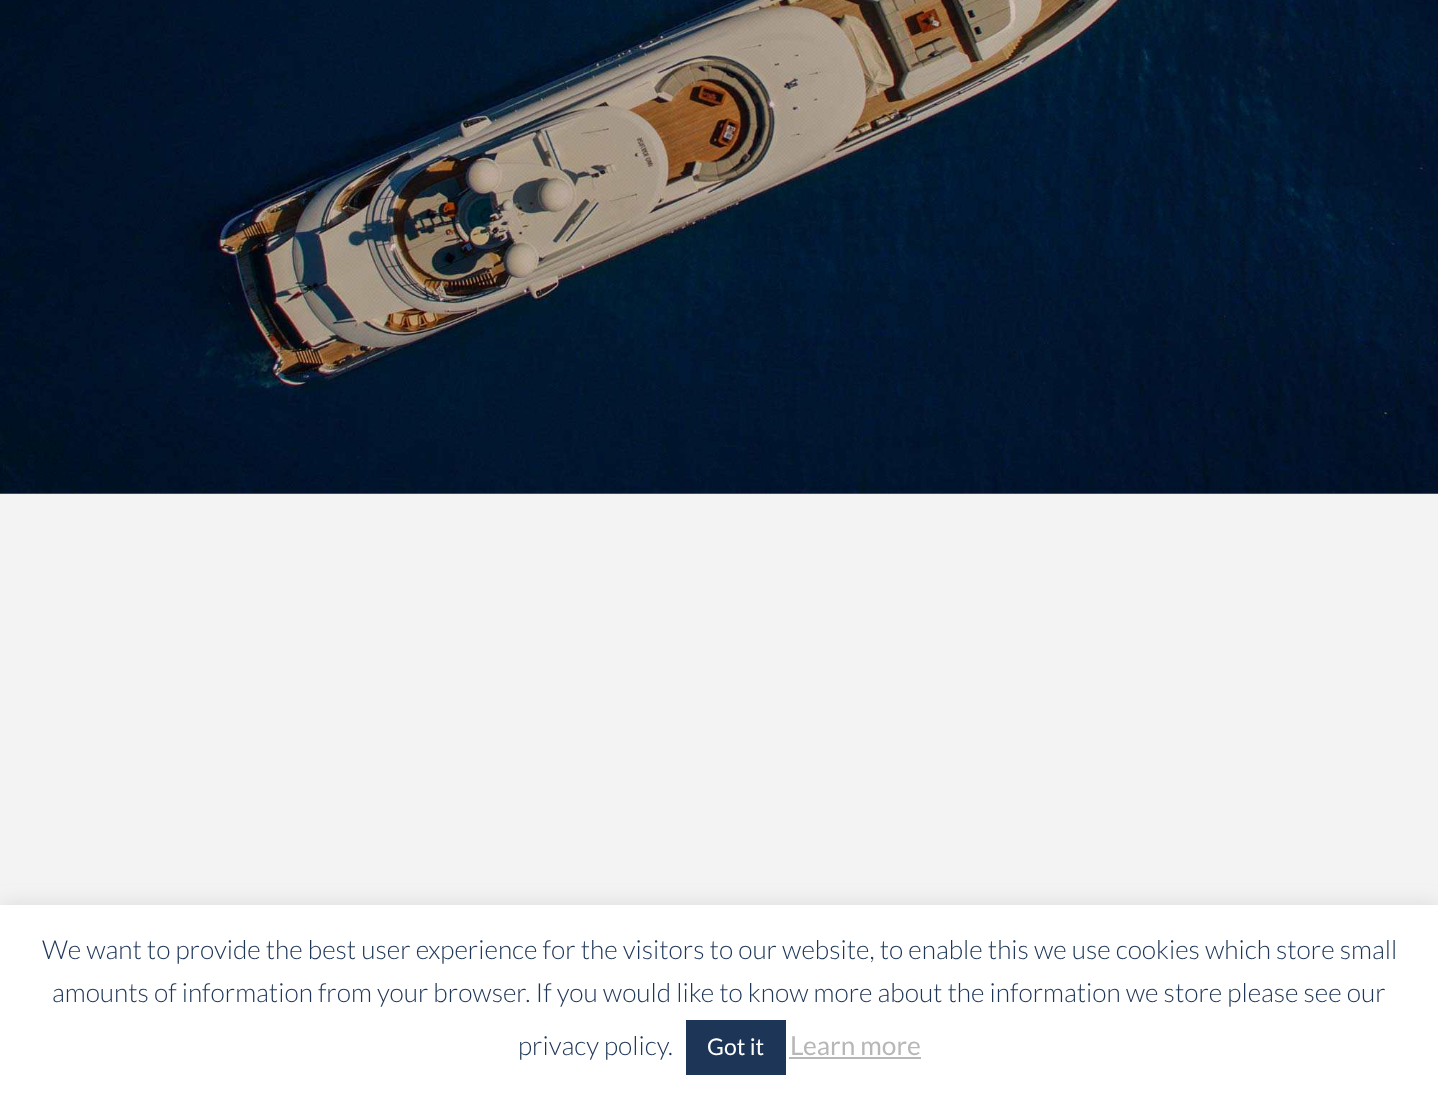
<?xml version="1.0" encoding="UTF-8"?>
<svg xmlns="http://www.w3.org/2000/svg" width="1438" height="1094">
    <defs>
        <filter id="blur1" x="-50%" y="-200%" width="200%" height="500%"><feGaussianBlur stdDeviation="9"/></filter>
    </defs>
    <rect width="100%" height="100%" fill="#FFFFFF"/>
    <image x="0" y="0" width="1438" height="494" href="img_01.png"/>
    <rect x="0" y="494" width="1438" height="411" fill="#F3F3F3"/>
    <rect x="0" y="903" width="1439" height="191" fill="#ACABAB" fill-opacity="0.3" filter="url(#blur1)"/>
    <rect x="0" y="905" width="1438" height="189" fill="#FFFFFF"/>
    <text x="42" y="959" font-family="Lato" font-size="26.25" font-weight="300" fill="#1D3557">We want to provide the best user experience for the visitors to our website, to enable this we use cookies which store small</text>
    <text x="52" y="1002" font-family="Lato" font-size="26.25" font-weight="300" fill="#1D3557">amounts of information from your browser. If you would like to know more about the information we store please see our</text>
    <text x="518" y="1055" font-family="Lato" font-size="26.25" font-weight="300" fill="#1D3557">privacy policy.</text>
    <rect x="686" y="1020" width="100" height="55" fill="#1D3557"/>
    <text x="707" y="1055" font-family="Lato" font-size="23" fill="#FFFFFF">Got it</text>
    <text x="790" y="1055" font-family="Lato" font-size="26.25" fill="#B7B7B7">Learn more</text>
    <rect x="789" y="1057" width="132" height="2" fill="#B7B7B7"/>
</svg>
